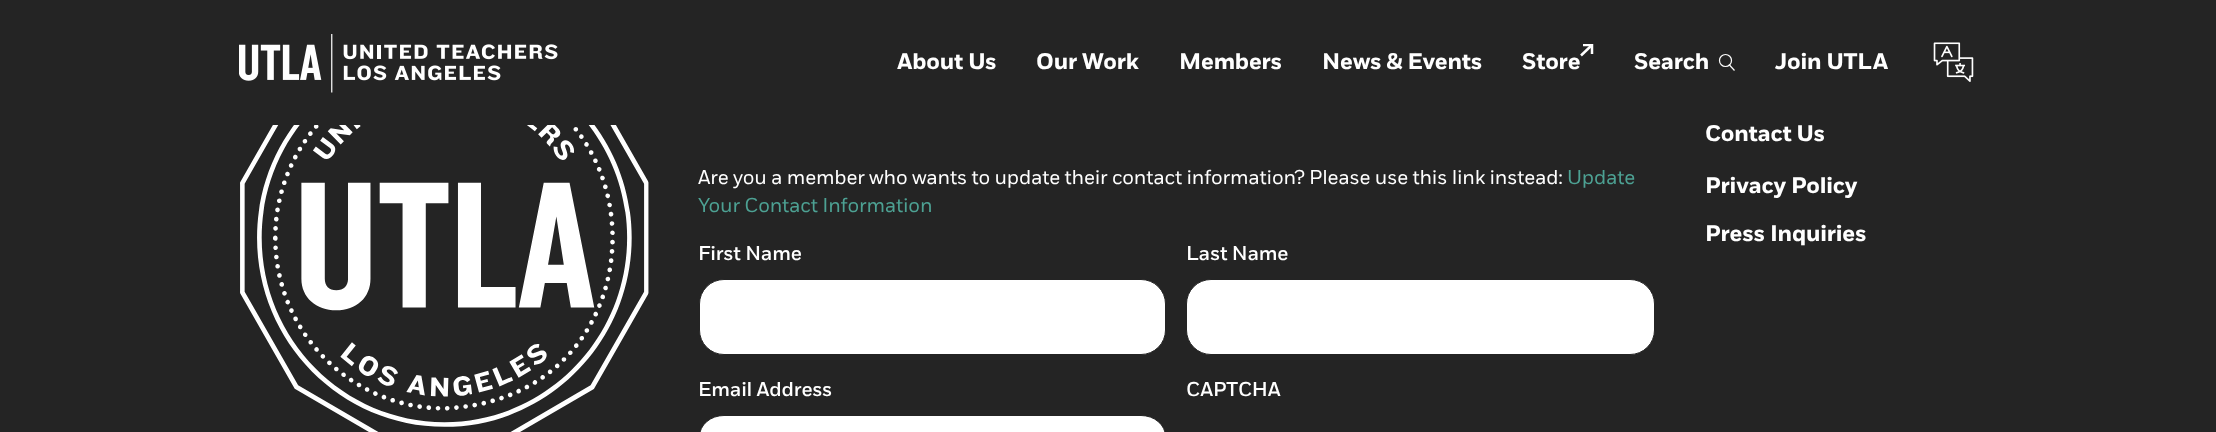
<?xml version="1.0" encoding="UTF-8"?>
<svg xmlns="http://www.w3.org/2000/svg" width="2216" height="432">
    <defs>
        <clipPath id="clip1"><rect x="1580" y="44" width="14" height="14"/></clipPath>
    </defs>
    <rect width="100%" height="100%" fill="#242424"/>
    <text x="1705" y="141" font-family="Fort" font-size="22.5" font-weight="700" letter-spacing="-0.2" fill="#FFFFFF">Contact Us</text>
    <rect x="1713" y="124" width="1" height="1" fill="#242424"/>
    <image x="239" y="34" width="319" height="59" href="img_01.png"/>
    <text x="897" y="69" font-family="Fort" font-size="22.5" font-weight="700" letter-spacing="-0.2" fill="#FFFFFF">About Us</text>
    <text x="1036" y="69" font-family="Fort" font-size="22.5" font-weight="700" letter-spacing="-0.2" fill="#FFFFFF">Our Work</text>
    <text x="1179" y="69" font-family="Fort" font-size="22.5" font-weight="700" letter-spacing="-0.2" fill="#FFFFFF">Members</text>
    <text x="1322" y="69" font-family="Fort" font-size="22.5" font-weight="700" letter-spacing="-0.2" fill="#FFFFFF">News &amp; Events</text>
    <path d="M 1581 55.5 L 1592 45" fill="none" stroke="#FFFFFF" stroke-width="2.5"/>
    <g clip-path="url(#clip1)">
        <path d="M 1583 45 H 1592 V 54" fill="none" stroke="#FFFFFF" stroke-width="2.5"/>
    </g>
    <text x="1522" y="69" font-family="Fort" font-size="22.5" font-weight="700" letter-spacing="-0.2" fill="#FFFFFF">Store</text>
    <text x="1634" y="69" font-family="Fort" font-size="22.5" font-weight="700" letter-spacing="-0.2" fill="#FFFFFF">Search</text>
    <circle cx="1725.5" cy="60.5" r="6" fill="none" stroke="#FFFFFF" stroke-width="1.2"/>
    <path d="M 1729 64.5 L 1734.5 70.5" fill="none" stroke="#FFFFFF" stroke-width="1.2"/>
    <text x="1775" y="69" font-family="Fort" font-size="22.5" font-weight="700" letter-spacing="-0.2" fill="#FFFFFF">Join UTLA</text>
    <image x="1933" y="42" width="41" height="40" href="img_02.png"/>
    <image x="240" y="125" width="409" height="307" href="img_03.png"/>
    <text x="698" y="184" font-family="Fort" font-size="20" letter-spacing="-0.2" fill="#FFFFFF">Are you a member who wants to update their contact information? Please use this link instead:</text>
    <text x="1567" y="184" font-family="Fort" font-size="20" letter-spacing="-0.2" fill="#4DA193">Update</text>
    <text x="698" y="212" font-family="Fort" font-size="20" letter-spacing="-0.2" fill="#4DA193">Your Contact Information</text>
    <text x="698" y="260" font-family="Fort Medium" font-size="20" font-weight="500" letter-spacing="-0.2" fill="#FFFFFF">First Name</text>
    <rect x="699.5" y="279.5" width="466" height="75" rx="24.5" fill="#FFFFFF" stroke="#242424"/>
    <text x="1186" y="260" font-family="Fort Medium" font-size="20" font-weight="500" letter-spacing="-0.2" fill="#FFFFFF">Last Name</text>
    <rect x="1186.5" y="279.5" width="468" height="75" rx="24.5" fill="#FFFFFF" stroke="#242424"/>
    <text x="698" y="396" font-family="Fort Medium" font-size="20" font-weight="500" letter-spacing="-0.2" fill="#FFFFFF">Email Address</text>
    <rect x="699.5" y="415.5" width="466" height="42" rx="24.5" fill="#FFFFFF" stroke="#242424"/>
    <text x="1186" y="396" font-family="Fort Medium" font-size="20" font-weight="500" letter-spacing="-0.2" fill="#FFFFFF">CAPTCHA</text>
    <text x="1705" y="193" font-family="Fort" font-size="22.5" font-weight="700" letter-spacing="-0.2" fill="#FFFFFF">Privacy Policy</text>
    <text x="1705" y="241" font-family="Fort" font-size="22.5" font-weight="700" letter-spacing="-0.2" fill="#FFFFFF">Press Inquiries</text>
</svg>
